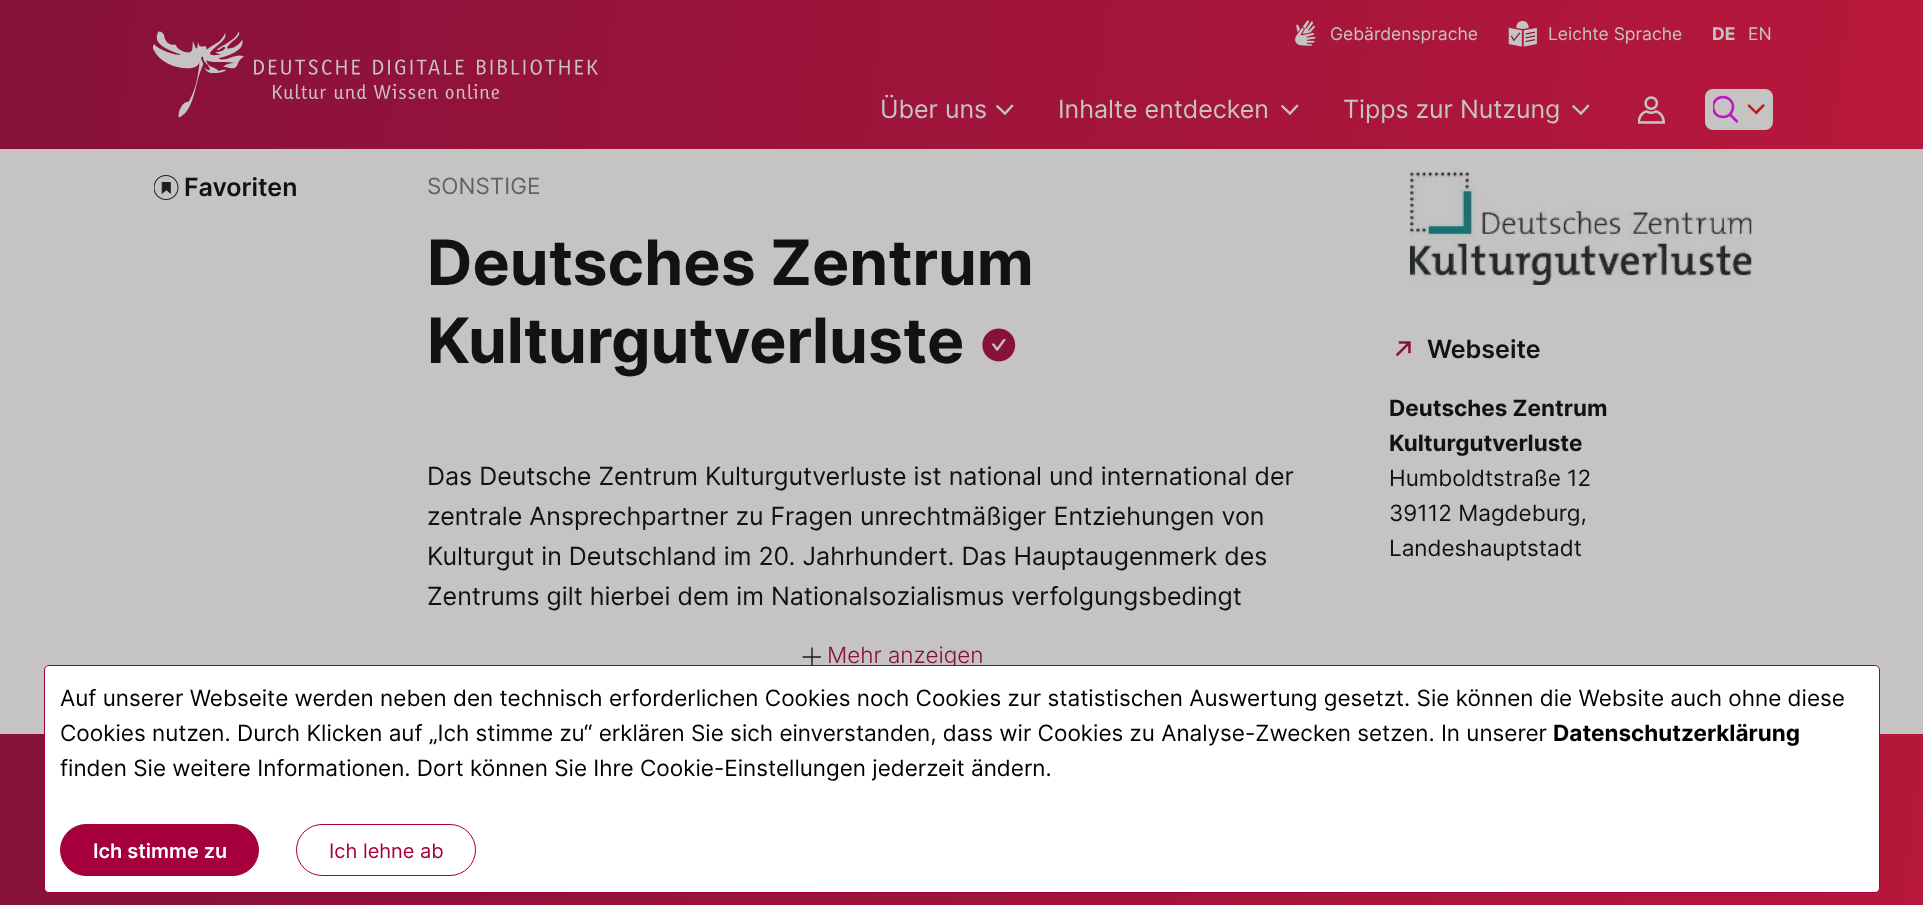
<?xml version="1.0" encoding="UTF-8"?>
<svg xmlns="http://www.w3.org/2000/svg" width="1923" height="905">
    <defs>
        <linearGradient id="g1" gradientUnits="userSpaceOnUse" x1="1919" y1="189" x2="4.8" y2="-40"><stop offset="0" stop-color="#B8183B"/><stop offset="1" stop-color="#86113A"/></linearGradient>
        <clipPath id="clip1"><rect x="1713" y="89" width="27" height="41"/></clipPath>
        <linearGradient id="g2" gradientUnits="userSpaceOnUse" x1="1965" y1="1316" x2="-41" y2="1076"><stop offset="0.01" stop-color="#B8183B"/><stop offset="0.95" stop-color="#86113A"/></linearGradient>
    </defs>
    <rect width="100%" height="100%" fill="#C5C4C3"/>
    <rect x="0" y="0" width="1923" height="149" fill="url(#g1)"/>
    <image x="153" y="31" width="445" height="87" href="img_01.png"/>
    <image x="1294" y="20" width="22" height="26" href="img_02.png"/>
    <text x="1330" y="40" font-family="Inter" font-size="17.5" fill="#C5C4C3">Gebärdensprache</text>
    <image x="1508" y="20" width="29" height="27" href="img_03.png"/>
    <text x="1548" y="40" font-family="Inter" font-size="17.5" fill="#C5C4C3">Leichte Sprache</text>
    <text x="1712" y="40" font-family="Inter" font-size="17.5" font-weight="700" fill="#C5C4C3">DE</text>
    <text x="1748" y="40" font-family="Inter" font-size="17.5" fill="#C5C4C3">EN</text>
    <text x="880" y="118" font-family="Inter" font-size="25" fill="#C5C4C3">Über uns</text>
    <path d="M 1012 106 L 1005 113.5 L 997.5 106.5" fill="none" stroke="#C5C4C3" stroke-width="2.3" stroke-linecap="square"/>
    <text x="1058" y="118" font-family="Inter" font-size="25" fill="#C5C4C3">Inhalte entdecken</text>
    <path d="M 1297 106 L 1290 113.5 L 1282.5 106.5" fill="none" stroke="#C5C4C3" stroke-width="2.3" stroke-linecap="square"/>
    <text x="1343" y="118" font-family="Inter" font-size="25" fill="#C5C4C3">Tipps zur Nutzung</text>
    <path d="M 1588 106 L 1581 113.5 L 1573.5 106.5" fill="none" stroke="#C5C4C3" stroke-width="2.3" stroke-linecap="square"/>
    <image x="1638" y="96" width="27" height="28" href="img_04.png"/>
    <rect x="1705" y="89" width="68" height="41" rx="8" fill="#C5C4C3"/>
    <path d="M 1730 114.5 L 1737.5 122" fill="none" stroke="#BF17BD" stroke-width="2.5"/>
    <g clip-path="url(#clip1)">
        <circle cx="1723" cy="107" r="10" fill="none" stroke="#BF17BD" stroke-width="2.5"/>
    </g>
    <path d="M 1765 105.5 L 1756.5 114.5 L 1747.5 106 L 1749 104 L 1756 111 L 1763 104 Z" fill="#BF1716" fill-rule="evenodd"/>
    <image x="154" y="175" width="25" height="25" href="img_05.png"/>
    <text x="184" y="196" font-family="Inter" font-size="25" font-weight="600" fill="#131111">Favoriten</text>
    <text x="427" y="194" font-family="Inter" font-size="22.5" fill="#626365">SONSTIGE</text>
    <text font-family="Inter" font-size="62.5" font-weight="700" fill="#131111">
        <tspan x="427" y="285">Deutsches Zentrum</tspan>
        <tspan x="427" y="363">Kulturgutverluste</tspan>
    </text>
    <image x="982" y="328" width="34" height="34" href="img_06.png"/>
    <text font-family="Inter" font-size="25" fill="#131111">
        <tspan x="427" y="485">Das Deutsche Zentrum Kulturgutverluste ist national und international der</tspan>
        <tspan x="427" y="525">zentrale Ansprechpartner zu Fragen unrechtmäßiger Entziehungen von</tspan>
        <tspan x="427" y="565">Kulturgut in Deutschland im 20. Jahrhundert. Das Hauptaugenmerk des</tspan>
        <tspan x="427" y="605">Zentrums gilt hierbei dem im Nationalsozialismus verfolgungsbedingt</tspan>
    </text>
    <path d="M 812 647.5 V 666 M 802.5 657 H 821" fill="none" stroke="#1E1D1C" stroke-width="1.4"/>
    <text x="827" y="663" font-family="Inter" font-size="22.5" font-weight="300" fill="#86113A">Mehr anzeigen</text>
    <image x="1410" y="172" width="342" height="113" href="img_07.png"/>
    <image x="1395" y="341" width="16" height="16" href="img_08.png"/>
    <text x="1427" y="358" font-family="Inter" font-size="25" font-weight="600" fill="#131111">Webseite</text>
    <text font-family="Inter" font-size="22.5" font-weight="700" fill="#131111">
        <tspan x="1389" y="416">Deutsches Zentrum</tspan>
        <tspan x="1389" y="451">Kulturgutverluste</tspan>
    </text>
    <text font-family="Inter" font-size="22.5" fill="#131111">
        <tspan x="1389" y="486">Humboldtstraße 12</tspan>
        <tspan x="1389" y="521">39112 Magdeburg,</tspan>
        <tspan x="1389" y="556">Landeshauptstadt</tspan>
    </text>
    <rect x="0" y="734" width="1923" height="171" fill="url(#g2)"/>
    <rect x="44.5" y="665.5" width="1835" height="227" rx="4.5" fill="#FFFFFF" stroke="#A5003B"/>
    <text font-family="Inter" font-size="22.5" fill="#000000">
        <tspan x="60" y="706">Auf unserer Webseite werden neben den technisch erforderlichen Cookies noch Cookies zur statistischen Auswertung gesetzt. Sie können die Website auch ohne diese</tspan>
        <tspan x="60" y="741">Cookies nutzen. Durch Klicken auf „Ich stimme zu“ erklären Sie sich einverstanden, dass wir Cookies zu Analyse-Zwecken setzen. In unserer</tspan>
    </text>
    <text x="1553" y="741" font-family="Inter" font-size="22.5" font-weight="700" fill="#000000">Datenschutzerklärung</text>
    <text x="60" y="776" font-family="Inter" font-size="22.5" fill="#000000">finden Sie weitere Informationen. Dort können Sie Ihre Cookie-Einstellungen jederzeit ändern.</text>
    <rect x="60.5" y="824.5" width="198" height="51" rx="25.5" fill="#A5003B" stroke="#A5003B"/>
    <text x="93" y="858" font-family="Inter" font-size="20" font-weight="600" fill="#FFFFFF">Ich stimme zu</text>
    <rect x="296.5" y="824.5" width="179" height="51" rx="25.5" fill="none" stroke="#A5003B"/>
    <text x="329" y="858" font-family="Inter" font-size="20" fill="#A5003B">Ich lehne ab</text>
</svg>
